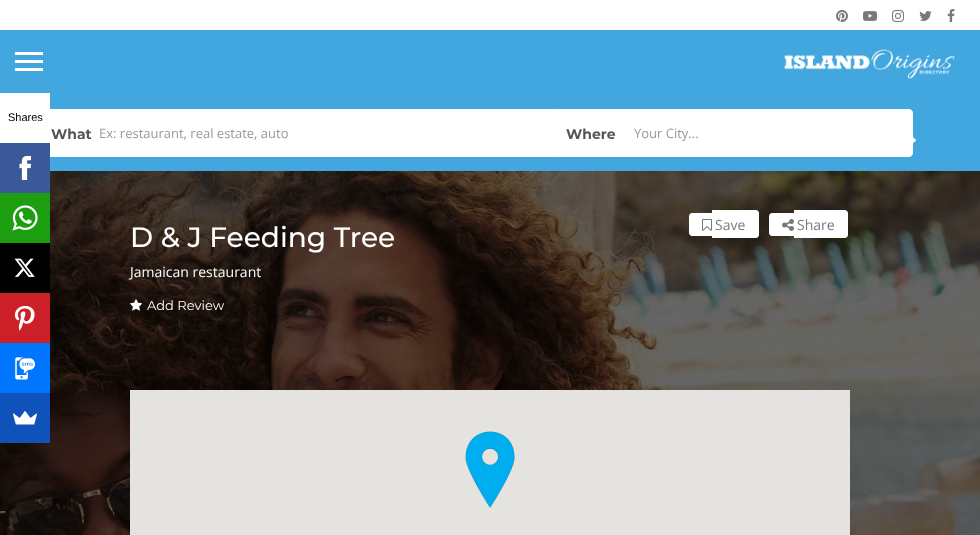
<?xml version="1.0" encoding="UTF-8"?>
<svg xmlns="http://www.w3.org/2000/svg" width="980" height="535">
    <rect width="100%" height="100%" fill="#FFFFFF"/>
    <rect x="0" y="30" width="980" height="141" fill="#42A7DF"/>
    <rect x="50" y="110" width="502" height="46" fill="#FFFFFF"/>
    <rect x="40.5" y="109.5" width="512" height="47" fill="none" stroke="#FFFFFF"/>
    <rect x="0" y="93" width="50" height="50" fill="#FFFFFF"/>
    <text x="8" y="121" font-family="Liberation Sans" font-size="11" fill="#000000">Shares</text>
    <image x="0" y="171" width="980" height="364" href="img_14.png"/>
    <rect x="0" y="143" width="50" height="50" fill="#3B5998"/>
    <image x="19" y="156" width="12" height="24" href="img_01.png"/>
    <rect x="0" y="193" width="50" height="50" fill="#1D9E11"/>
    <image x="12" y="205" width="26" height="26" href="img_02.png"/>
    <rect x="0" y="243" width="50" height="50" fill="#000000"/>
    <image x="14" y="258" width="21" height="19" href="img_03.png"/>
    <rect x="0" y="293" width="50" height="50" fill="#CB2027"/>
    <image x="15" y="306" width="20" height="25" href="img_04.png"/>
    <rect x="0" y="343" width="50" height="50" fill="#0076FF"/>
    <image x="15" y="357" width="20" height="23" href="img_05.png"/>
    <rect x="0" y="393" width="50" height="50" fill="#0F52BA"/>
    <image x="13" y="411" width="24" height="14" href="img_06.png"/>
    <image x="836" y="10" width="12" height="12" href="img_07.png"/>
    <image x="863" y="11" width="14" height="10" href="img_08.png"/>
    <image x="892" y="10" width="12" height="12" href="img_09.png"/>
    <image x="919" y="11" width="13" height="10" href="img_10.png"/>
    <image x="947" y="9" width="8" height="13" href="img_11.png"/>
    <rect x="15" y="52" width="28" height="3" fill="#FFFFFF"/>
    <rect x="15" y="60" width="28" height="3" fill="#FFFFFF"/>
    <rect x="15" y="68" width="28" height="3" fill="#FFFFFF"/>
    <image x="784" y="49" width="171" height="30" href="img_12.png"/>
    <text x="51" y="139" font-family="Montserrat" font-size="14" font-weight="700" fill="#555555">What</text>
    <text x="99" y="138" font-family="Open Sans" font-size="13" fill="#999999">Ex: restaurant, real estate, auto</text>
    <path d="M 553.5 109.5 H 909 C 911 109.5 912.5 111 912.5 113 V 153 C 912.5 155 911 156.5 909 156.5 H 553.5 Z" fill="#FFFFFF" stroke="#FFFFFF"/>
    <text x="566" y="139" font-family="Montserrat" font-size="14" font-weight="700" fill="#555555">Where</text>
    <text x="634" y="138" font-family="Open Sans" font-size="13" fill="#999999">Your City...</text>
    <image x="913" y="137" width="4" height="7" href="img_13.png"/>
    <text x="130" y="247" font-family="Montserrat" font-size="28" font-weight="500" fill="#FFFFFF">D &amp; J Feeding Tree</text>
    <text x="130" y="277" font-family="Open Sans" font-size="14" fill="#FFFFFF">Jamaican restaurant</text>
    <image x="130" y="299" width="12" height="12" href="img_15.png"/>
    <text x="147" y="310" font-family="Montserrat" font-size="13" fill="#FFFFFF">Add Review</text>
    <path d="M 692 213 H 712 V 236 H 692 C 690.5 236 689 234.5 689 233 V 216 C 689 214.5 690.5 213 692 213 Z" fill="#FFFFFF"/>
    <path d="M 712 210 H 756 C 757.5 210 759 211.5 759 213 V 235 C 759 236.5 757.5 238 756 238 H 712 Z" fill="#FFFFFF"/>
    <image x="702" y="219" width="10" height="12" href="img_16.png"/>
    <text x="715" y="230" font-family="Open Sans" font-size="14" fill="#797979">Save</text>
    <path d="M 772 213 H 794 V 236 H 772 C 770.5 236 769 234.5 769 233 V 216 C 769 214.5 770.5 213 772 213 Z" fill="#FFFFFF"/>
    <path d="M 794 210 H 845 C 846.5 210 848 211.5 848 213 V 235 C 848 236.5 846.5 238 845 238 H 794 Z" fill="#FFFFFF"/>
    <image x="782" y="219" width="12" height="12" href="img_17.png"/>
    <text x="797" y="230" font-family="Open Sans" font-size="14" fill="#797979">Share</text>
    <rect x="849" y="390" width="1" height="145" fill="#E3E3E3"/>
    <rect x="130" y="390" width="1" height="145" fill="#E3E3E3"/>
    <rect x="131" y="390" width="718" height="145" fill="#E5E3DF"/>
    <image x="465" y="431" width="50" height="77" href="img_18.png"/>
</svg>
